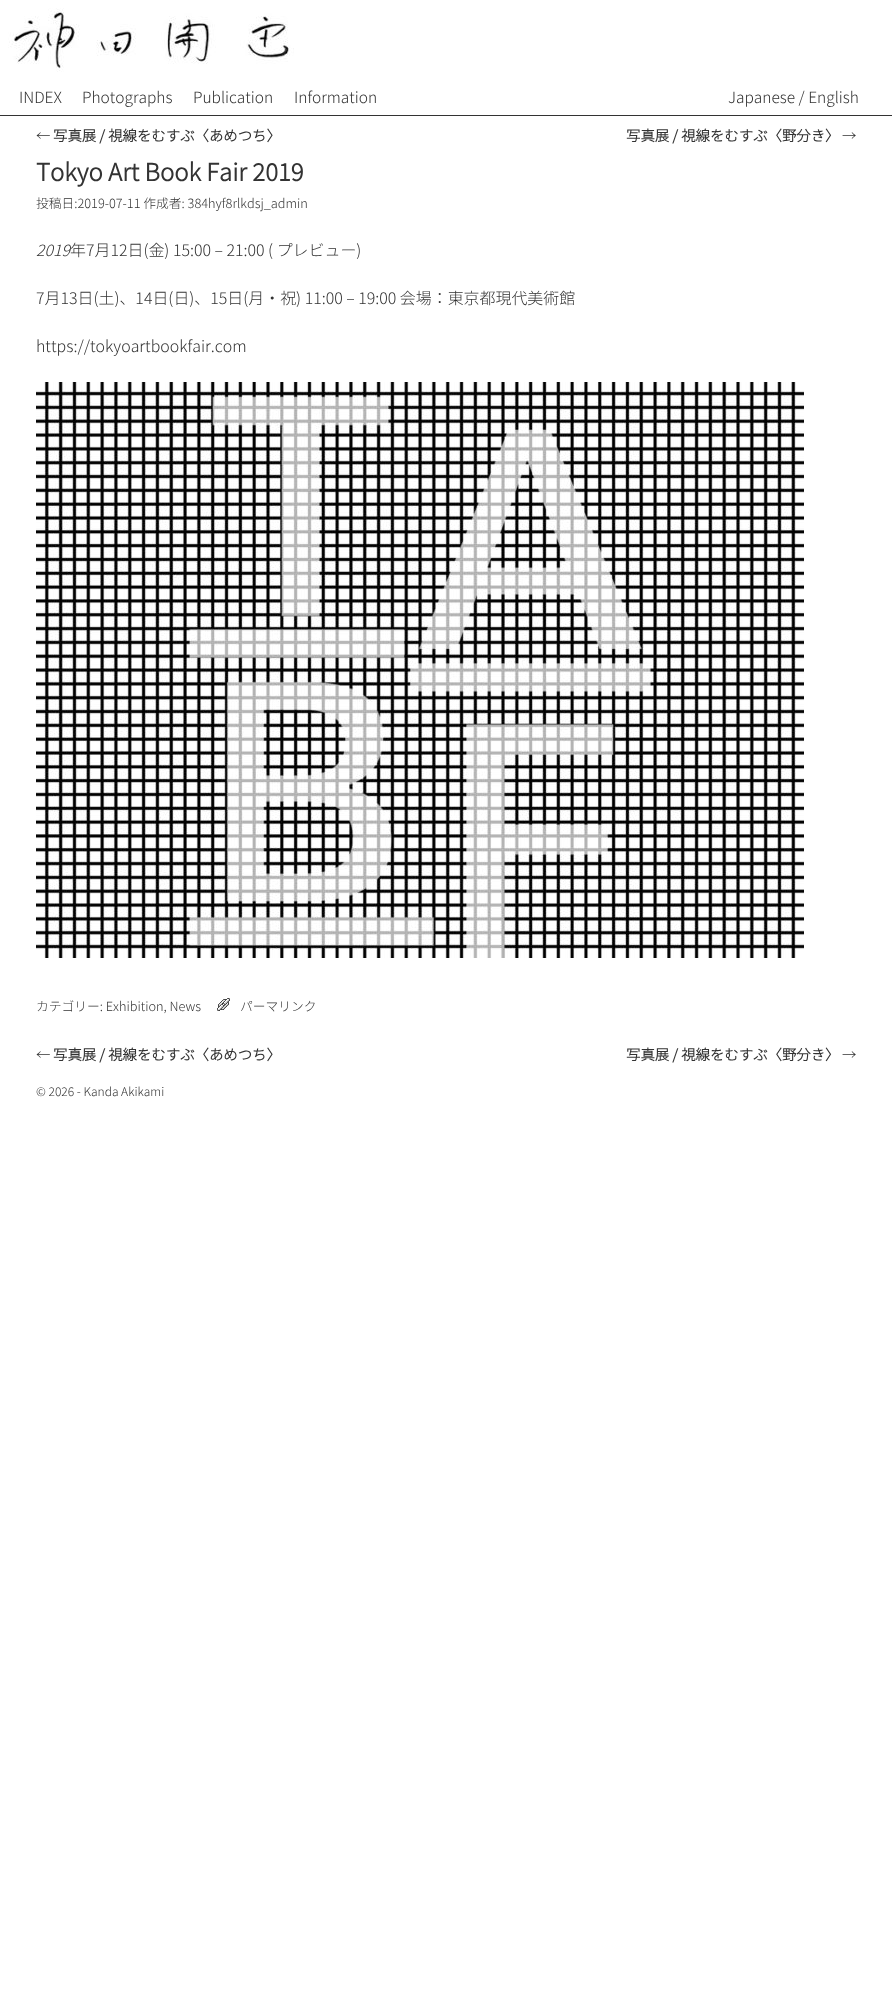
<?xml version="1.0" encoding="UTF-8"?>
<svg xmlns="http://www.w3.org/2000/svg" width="892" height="2002">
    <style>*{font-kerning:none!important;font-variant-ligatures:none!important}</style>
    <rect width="100%" height="100%" fill="#FFFFFF"/>
    <image x="8" y="8" width="286" height="64" href="img_01.png"/>
    <rect x="0" y="115" width="892" height="1" fill="#333333"/>
    <text x="19" y="103" font-family="Noto Sans JP" font-size="15.5" font-weight="100" fill="#333333">INDEX</text>
    <text x="82" y="103" font-family="Noto Sans JP" font-size="15.5" font-weight="100" fill="#333333">Photographs</text>
    <text x="193" y="103" font-family="Noto Sans JP" font-size="15.5" font-weight="100" fill="#333333">Publication</text>
    <text x="294" y="103" font-family="Noto Sans JP" font-size="15.5" font-weight="100" fill="#333333">Information</text>
    <text x="728" y="103" font-family="Noto Sans JP" font-size="15.5" font-weight="100" fill="#333333">Japanese / English</text>
    <text x="36" y="141" font-family="Noto Sans JP" font-size="14.4" font-weight="100" fill="#333333">←</text>
    <text x="53" y="141" font-family="Noto Sans JP" font-size="14.4" font-weight="700" fill="#333333">写真展 / 視線をむすぶ〈あめつち〉</text>
    <text x="626" y="141" font-family="Noto Sans JP" font-size="14.4" font-weight="700" fill="#333333">写真展 / 視線をむすぶ〈野分き〉</text>
    <text x="842" y="141" font-family="Noto Sans JP" font-size="14.4" font-weight="100" fill="#333333">→</text>
    <text x="36" y="181" font-family="Noto Sans JP" font-size="24" font-weight="700" fill="#333333">Tokyo Art Book Fair 2019</text>
    <text x="36" y="208" font-family="Noto Sans JP" font-size="12.75" font-weight="100" fill="#333333">投稿日:2019-07-11 作成者: 384hyf8rlkdsj_admin</text>
    <text x="36" y="256" font-family="Noto Sans JP" font-size="15.95" font-weight="100" font-style="italic" fill="#333333">2019</text>
    <text x="70" y="256" font-family="Noto Sans JP" font-size="15.95" font-weight="100" fill="#333333">年7月12日(金) 15:00 – 21:00 ( プレビュー)</text>
    <text x="36" y="304" font-family="Noto Sans JP" font-size="15.95" font-weight="100" fill="#333333">7月13日(土)、14日(日)、15日(月・祝) 11:00 – 19:00 会場：東京都現代美術館</text>
    <text x="36" y="352" font-family="Noto Sans JP" font-size="15.95" font-weight="100" fill="#333333">https://tokyoartbookfair.com</text>
    <image x="36" y="382" width="768" height="576" href="img_02.png"/>
    <text x="36" y="1011" font-family="Noto Sans JP" font-size="12.75" font-weight="100" fill="#333333">カテゴリー: Exhibition, News</text>
    <image x="217" y="998" width="13" height="13" href="img_03.png"/>
    <text x="240" y="1011" font-family="Noto Sans JP" font-size="12.75" font-weight="100" fill="#333333">パーマリンク</text>
    <text x="36" y="1060" font-family="Noto Sans JP" font-size="14.4" font-weight="100" fill="#333333">←</text>
    <text x="53" y="1060" font-family="Noto Sans JP" font-size="14.4" font-weight="700" fill="#333333">写真展 / 視線をむすぶ〈あめつち〉</text>
    <text x="626" y="1060" font-family="Noto Sans JP" font-size="14.4" font-weight="700" fill="#333333">写真展 / 視線をむすぶ〈野分き〉</text>
    <text x="842" y="1060" font-family="Noto Sans JP" font-size="14.4" font-weight="100" fill="#333333">→</text>
    <text x="36" y="1096" font-family="Noto Sans JP" font-size="12" font-weight="100" fill="#333333">© 2026 - Kanda Akikami</text>
</svg>
